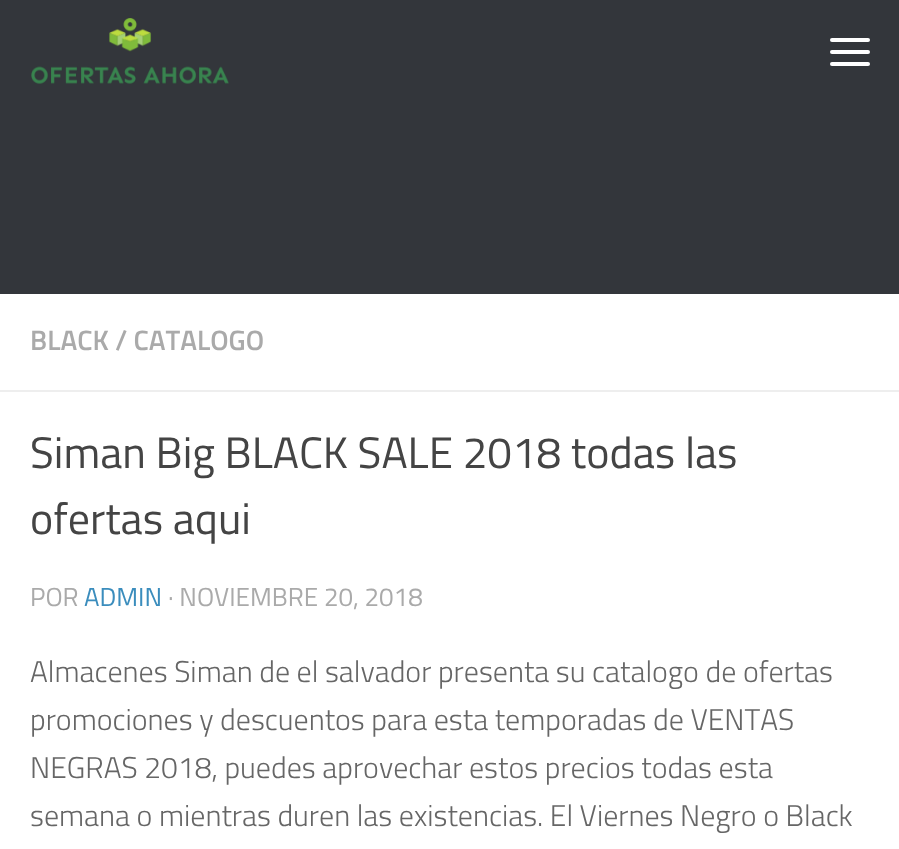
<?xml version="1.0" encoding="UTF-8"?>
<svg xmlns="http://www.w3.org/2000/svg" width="899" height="849">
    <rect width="100%" height="100%" fill="#FFFFFF"/>
    <rect x="0" y="0" width="899" height="294" fill="#33363B"/>
    <image x="31" y="18" width="198" height="66" href="img_01.png"/>
    <rect x="830" y="38" width="40" height="4" rx="2" fill="#FFFFFF"/>
    <rect x="830" y="50" width="40" height="4" rx="2" fill="#FFFFFF"/>
    <rect x="830" y="62" width="40" height="4" rx="2" fill="#FFFFFF"/>
    <rect x="0" y="390" width="899" height="2" fill="#EEEEEE"/>
    <text x="30" y="350" font-family="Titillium" font-size="28" font-weight="600" fill="#AAAAAA">BLACK / CATALOGO</text>
    <text font-family="Titillium" font-size="44" fill="#444444">
        <tspan x="30" y="468">Siman Big BLACK SALE 2018 todas las</tspan>
        <tspan x="30" y="534">ofertas aqui</tspan>
    </text>
    <text x="30" y="606" font-family="Titillium" font-size="26" fill="#AAAAAA">POR</text>
    <text x="84" y="606" font-family="Titillium" font-size="26" fill="#3B8DBD">ADMIN</text>
    <text x="168" y="606" font-family="Titillium" font-size="26" fill="#AAAAAA">· NOVIEMBRE 20, 2018</text>
    <text font-family="Titillium" font-size="30" font-weight="300" fill="#666666">
        <tspan x="30" y="682">Almacenes Siman de el salvador presenta su catalogo de ofertas</tspan>
        <tspan x="30" y="730">promociones y descuentos para esta temporadas de VENTAS</tspan>
        <tspan x="30" y="778">NEGRAS 2018, puedes aprovechar estos precios todas esta</tspan>
        <tspan x="30" y="826">semana o mientras duren las existencias. El Viernes Negro o Black</tspan>
    </text>
</svg>
